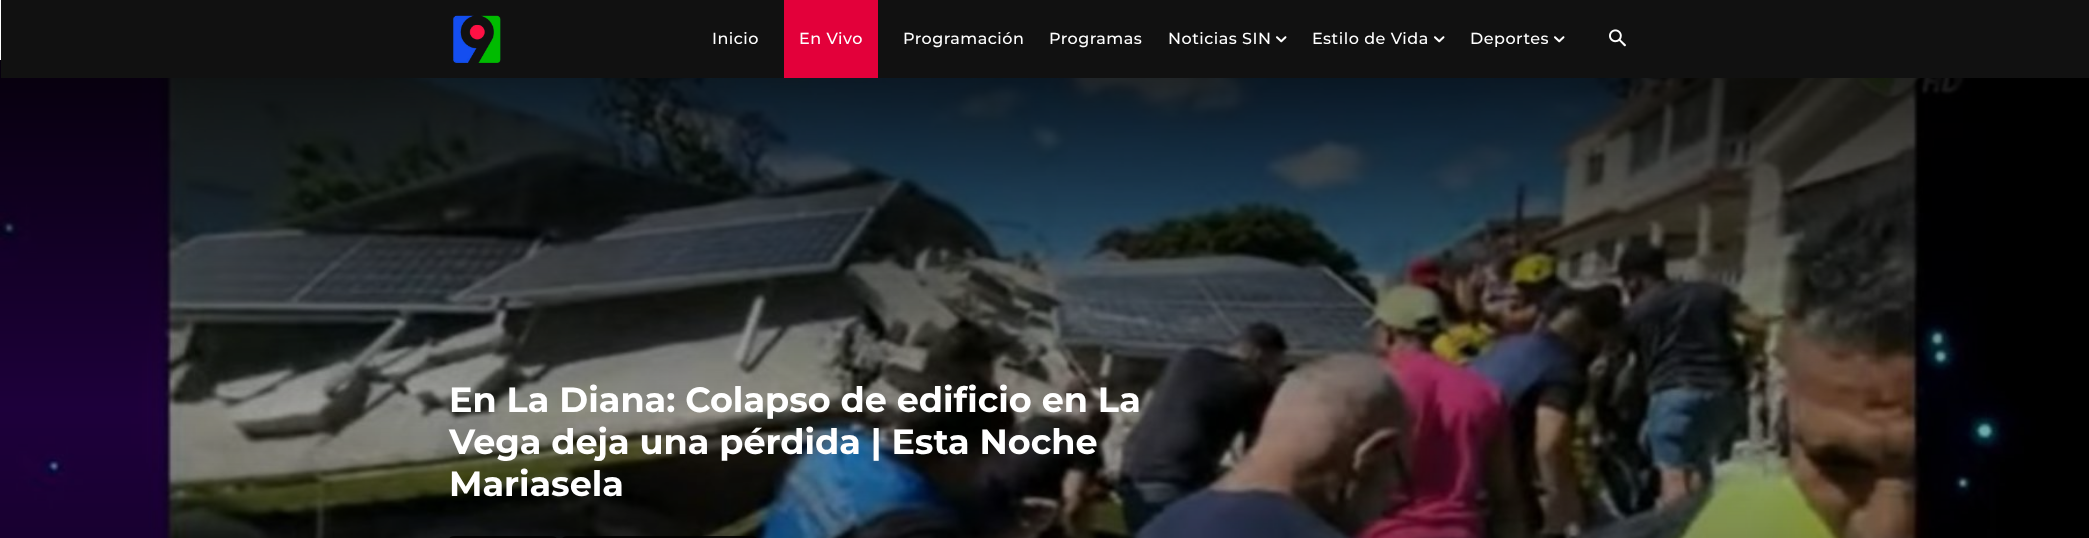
<?xml version="1.0" encoding="UTF-8"?>
<svg xmlns="http://www.w3.org/2000/svg" width="2089" height="538">
    <rect width="100%" height="100%" fill="#FFFFFF"/>
    <image x="0" y="60" width="2089" height="478" href="img_04.png"/>
    <rect x="1" y="0" width="2088" height="78" fill="#111111"/>
    <image x="453" y="15" width="48" height="48" href="img_01.png"/>
    <text x="712" y="44" font-family="Montserrat" font-size="16" font-weight="500" letter-spacing="0.5" fill="#FFFFFF">Inicio</text>
    <rect x="784" y="0" width="94" height="78" fill="#E3003A"/>
    <text x="799" y="44" font-family="Montserrat" font-size="16" font-weight="500" letter-spacing="0.5" fill="#FFFFFF">En Vivo</text>
    <text x="903" y="44" font-family="Montserrat" font-size="16" font-weight="500" letter-spacing="0.5" fill="#FFFFFF">Programación</text>
    <text x="1049" y="44" font-family="Montserrat" font-size="16" font-weight="500" letter-spacing="0.5" fill="#FFFFFF">Programas</text>
    <text x="1168" y="44" font-family="Montserrat" font-size="16" font-weight="500" letter-spacing="0.5" fill="#FFFFFF">Noticias SIN</text>
    <image x="1276" y="36" width="11" height="7" href="img_02.png"/>
    <text x="1312" y="44" font-family="Montserrat" font-size="16" font-weight="500" letter-spacing="0.5" fill="#FFFFFF">Estilo de Vida</text>
    <image x="1434" y="36" width="11" height="7" href="img_02.png"/>
    <text x="1470" y="44" font-family="Montserrat" font-size="16" font-weight="500" letter-spacing="0.5" fill="#FFFFFF">Deportes</text>
    <image x="1554" y="36" width="11" height="7" href="img_02.png"/>
    <image x="1609" y="29" width="17" height="18" href="img_03.png"/>
    <text font-family="Montserrat" font-size="35" font-weight="700" fill="#FFFFFF">
        <tspan x="449" y="412">En La Diana: Colapso de edificio en La</tspan>
        <tspan x="449" y="454">Vega deja una pérdida | Esta Noche</tspan>
        <tspan x="449" y="496">Mariasela</tspan>
    </text>
    <rect x="449" y="536" width="108" height="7" rx="5" fill="#000000" fill-opacity="0.85"/>
    <rect x="562" y="536" width="195" height="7" rx="5" fill="#000000" fill-opacity="0.85"/>
</svg>
